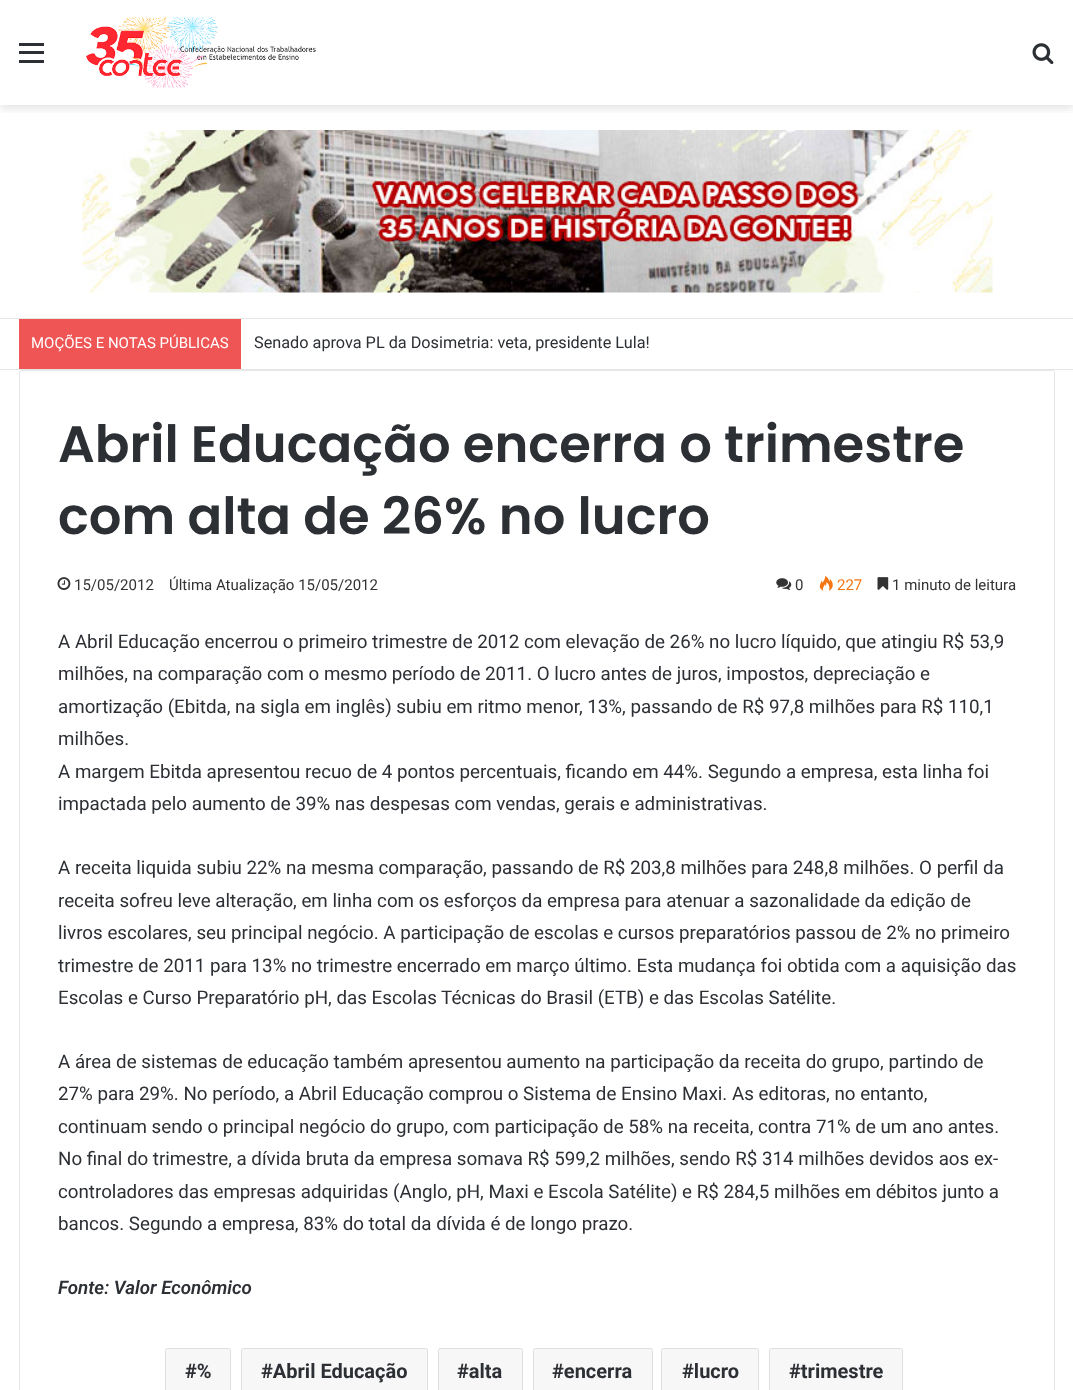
<?xml version="1.0" encoding="UTF-8"?>
<svg xmlns="http://www.w3.org/2000/svg" width="1073" height="1390">
    <defs>
        <clipPath id="clip1"><rect x="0" y="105" width="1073" height="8"/></clipPath>
        <filter id="blur1" x="-50%" y="-200%" width="200%" height="500%"><feGaussianBlur stdDeviation="4.5"/></filter>
    </defs>
    <rect width="100%" height="100%" fill="#FFFFFF"/>
    <g clip-path="url(#clip1)">
        <rect x="0" y="4" width="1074" height="105" fill="#000000" fill-opacity="0.1" filter="url(#blur1)"/>
    </g>
    <rect x="19" y="51" width="25" height="3" fill="#2C2F34"/>
    <rect x="19" y="43" width="25" height="3" fill="#2C2F34"/>
    <rect x="19" y="60" width="25" height="3" fill="#2C2F34"/>
    <image x="86" y="17" width="230" height="71" href="img_01.png"/>
    <image x="1032" y="43" width="22" height="22" href="img_02.png"/>
    <image x="82" y="130" width="911" height="163" href="img_03.png"/>
    <rect x="0" y="318" width="1073" height="1" fill="#E6E6E6"/>
    <rect x="0" y="369" width="1073" height="1" fill="#E6E6E6"/>
    <rect x="19" y="319" width="222" height="50" fill="#F05555"/>
    <text x="31" y="348" font-family="Roboto" font-size="15" fill="#FFFFFF">MOÇÕES E NOTAS PÚBLICAS</text>
    <text x="254" y="348" font-family="Roboto" font-size="16.25" fill="#2C2F34">Senado aprova PL da Dosimetria: veta, presidente Lula!</text>
    <rect x="19.5" y="370.5" width="1035" height="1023" rx="2" fill="none" stroke="#E6E6E6"/>
    <text font-family="Poppins" font-size="51.25" font-weight="600" fill="#2C2F34">
        <tspan x="58" y="462">Abril Educação encerra o trimestre</tspan>
        <tspan x="58" y="534">com alta de 26% no lucro</tspan>
    </text>
    <image x="57" y="577" width="14" height="13" href="img_04.png"/>
    <text x="74" y="590" font-family="Roboto" font-size="15" fill="#333333">15/05/2012</text>
    <text x="169" y="590" font-family="Roboto" font-size="15" fill="#333333">Última Atualização 15/05/2012</text>
    <image x="776" y="578" width="16" height="12" href="img_05.png"/>
    <text x="795" y="590" font-family="Roboto" font-size="15" fill="#333333">0</text>
    <image x="819" y="576" width="14" height="15" href="img_06.png"/>
    <text x="837" y="590" font-family="Roboto" font-size="15" fill="#F47512">227</text>
    <image x="877" y="577" width="12" height="13" href="img_07.png"/>
    <text x="892" y="590" font-family="Roboto" font-size="15" fill="#333333">1 minuto de leitura</text>
    <text font-family="Roboto" font-size="18.75" fill="#2C2F34">
        <tspan x="58" y="648">A Abril Educação encerrou o primeiro trimestre de 2012 com elevação de 26% no lucro líquido, que atingiu R$ 53,9</tspan>
        <tspan x="58" y="680">milhões, na comparação com o mesmo período de 2011. O lucro antes de juros, impostos, depreciação e</tspan>
        <tspan x="58" y="713">amortização (Ebitda, na sigla em inglês) subiu em ritmo menor, 13%, passando de R$ 97,8 milhões para R$ 110,1</tspan>
        <tspan x="58" y="745">milhões.</tspan>
        <tspan x="58" y="778">A margem Ebitda apresentou recuo de 4 pontos percentuais, ficando em 44%. Segundo a empresa, esta linha foi</tspan>
        <tspan x="58" y="810">impactada pelo aumento de 39% nas despesas com vendas, gerais e administrativas.</tspan>
    </text>
    <text font-family="Roboto" font-size="18.75" fill="#2C2F34">
        <tspan x="58" y="874">A receita liquida subiu 22% na mesma comparação, passando de R$ 203,8 milhões para 248,8 milhões. O perfil da</tspan>
        <tspan x="58" y="907">receita sofreu leve alteração, em linha com os esforços da empresa para atenuar a sazonalidade da edição de</tspan>
        <tspan x="58" y="939">livros escolares, seu principal negócio. A participação de escolas e cursos preparatórios passou de 2% no primeiro</tspan>
        <tspan x="58" y="972">trimestre de 2011 para 13% no trimestre encerrado em março último. Esta mudança foi obtida com a aquisição das</tspan>
        <tspan x="58" y="1004">Escolas e Curso Preparatório pH, das Escolas Técnicas do Brasil (ETB) e das Escolas Satélite.</tspan>
    </text>
    <text font-family="Roboto" font-size="18.75" fill="#2C2F34">
        <tspan x="58" y="1068">A área de sistemas de educação também apresentou aumento na participação da receita do grupo, partindo de</tspan>
        <tspan x="58" y="1100">27% para 29%. No período, a Abril Educação comprou o Sistema de Ensino Maxi. As editoras, no entanto,</tspan>
        <tspan x="58" y="1133">continuam sendo o principal negócio do grupo, com participação de 58% na receita, contra 71% de um ano antes.</tspan>
        <tspan x="58" y="1165">No final do trimestre, a dívida bruta da empresa somava R$ 599,2 milhões, sendo R$ 314 milhões devidos aos ex-</tspan>
        <tspan x="58" y="1198">controladores das empresas adquiridas (Anglo, pH, Maxi e Escola Satélite) e R$ 284,5 milhões em débitos junto a</tspan>
        <tspan x="58" y="1230">bancos. Segundo a empresa, 83% do total da dívida é de longo prazo.</tspan>
    </text>
    <text x="58" y="1294" font-family="Roboto" font-size="18.75" font-weight="600" font-style="italic" fill="#2C2F34">Fonte: Valor Econômico</text>
    <rect x="165.5" y="1348.5" width="65" height="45" rx="2" fill="#F7F7F7" stroke="#DEDEDE"/>
    <text x="185" y="1378" font-family="Roboto" font-size="20" font-weight="700" fill="#2C2F34">#%</text>
    <rect x="241.5" y="1348.5" width="186" height="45" rx="2" fill="#F7F7F7" stroke="#DEDEDE"/>
    <text x="261" y="1378" font-family="Roboto" font-size="20" font-weight="700" fill="#2C2F34">#Abril Educação</text>
    <rect x="438.5" y="1348.5" width="84" height="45" rx="2" fill="#F7F7F7" stroke="#DEDEDE"/>
    <text x="457" y="1378" font-family="Roboto" font-size="20" font-weight="700" fill="#2C2F34">#alta</text>
    <rect x="533.5" y="1348.5" width="119" height="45" rx="2" fill="#F7F7F7" stroke="#DEDEDE"/>
    <text x="552" y="1378" font-family="Roboto" font-size="20" font-weight="700" fill="#2C2F34">#encerra</text>
    <rect x="661.5" y="1348.5" width="97" height="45" rx="2" fill="#F7F7F7" stroke="#DEDEDE"/>
    <text x="682" y="1378" font-family="Roboto" font-size="20" font-weight="700" fill="#2C2F34">#lucro</text>
    <rect x="769.5" y="1348.5" width="133" height="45" rx="2" fill="#F7F7F7" stroke="#DEDEDE"/>
    <text x="789" y="1378" font-family="Roboto" font-size="20" font-weight="700" fill="#2C2F34">#trimestre</text>
</svg>
